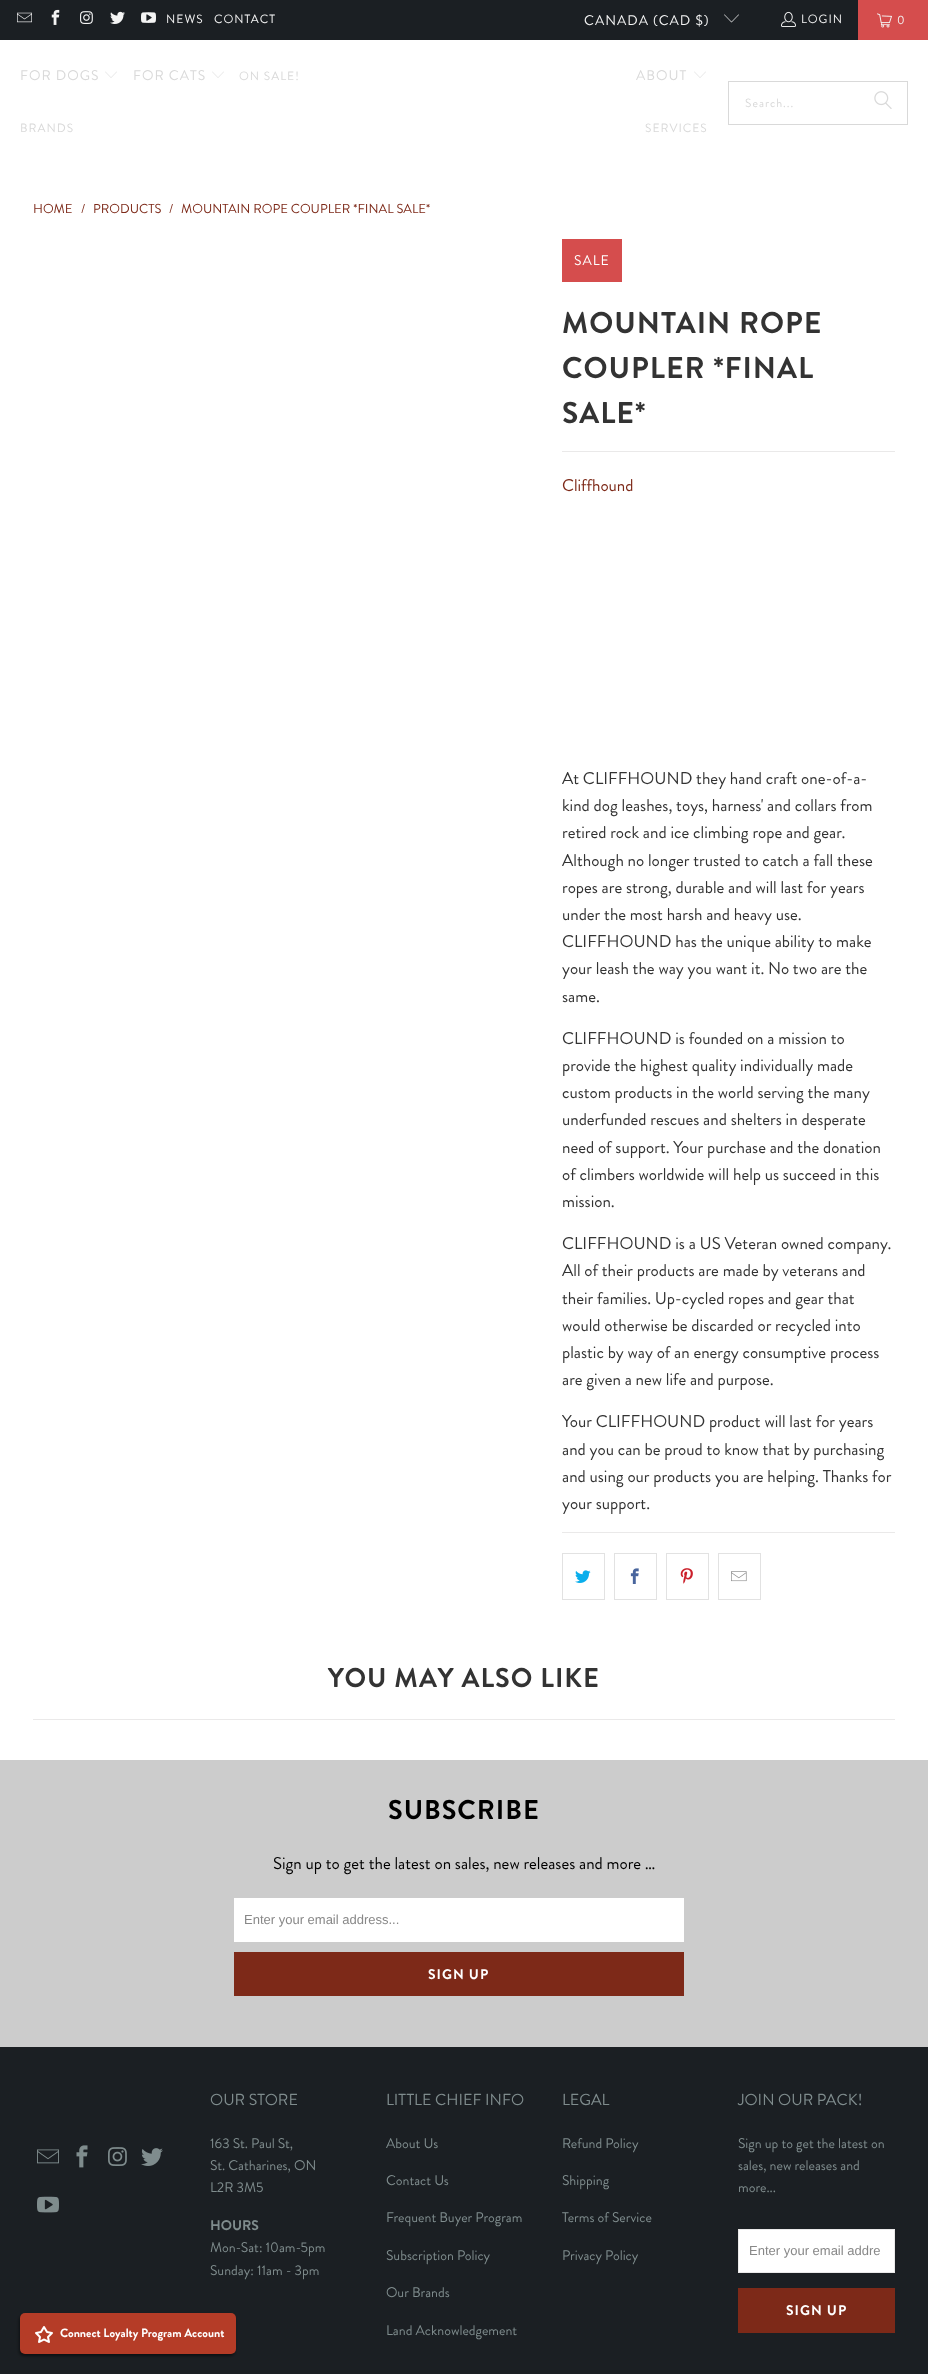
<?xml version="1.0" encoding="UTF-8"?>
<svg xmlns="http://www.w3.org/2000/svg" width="928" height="2374">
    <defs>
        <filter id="blur1" x="-50%" y="-200%" width="200%" height="500%"><feGaussianBlur stdDeviation="1.5"/></filter>
    </defs>
    <rect width="100%" height="100%" fill="#FFFFFF"/>
    <rect x="0" y="0" width="858" height="40" fill="#1B1F23"/>
    <image x="17" y="12" width="15" height="11" href="img_01.png"/>
    <image x="51" y="9" width="9" height="16" href="img_02.png"/>
    <image x="80" y="11" width="13" height="13" href="img_03.png"/>
    <image x="110" y="11" width="15" height="13" href="img_04.png"/>
    <image x="141" y="12" width="15" height="11" href="img_05.png"/>
    <text x="166" y="23" font-family="Brandon Grotesque" font-size="12" letter-spacing="1" fill="#F4F4F4">NEWS</text>
    <text x="214" y="23" font-family="Brandon Grotesque" font-size="12" letter-spacing="1" fill="#F4F4F4">CONTACT</text>
    <text x="584" y="25" font-family="Brandon Grotesque" font-size="14" letter-spacing="1" fill="#F4F4F4">CANADA (CAD $)</text>
    <image x="724" y="14" width="15" height="9" href="img_06.png"/>
    <image x="781" y="11" width="15" height="16" href="img_07.png"/>
    <text x="801" y="23" font-family="Brandon Grotesque" font-size="12" letter-spacing="1" fill="#F4F4F4">LOGIN</text>
    <rect x="858" y="0" width="70" height="40" fill="#D54D4D"/>
    <image x="877" y="13" width="15" height="15" href="img_08.png"/>
    <text x="897" y="24" font-family="Brandon Grotesque" font-size="12" letter-spacing="1" fill="#F4F4F4">0</text>
    <text x="20" y="80" font-family="Brandon Grotesque" font-size="14" letter-spacing="1" fill="#D9D9D9">FOR DOGS</text>
    <image x="105" y="71" width="12" height="7" href="img_09.png"/>
    <text x="133" y="80" font-family="Brandon Grotesque" font-size="14" letter-spacing="1" fill="#D9D9D9">FOR CATS</text>
    <image x="212" y="71" width="12" height="7" href="img_09.png"/>
    <text x="239" y="80" font-family="Brandon Grotesque" font-size="12" letter-spacing="1" fill="#D9D9D9">ON SALE!</text>
    <text x="20" y="132" font-family="Brandon Grotesque" font-size="12" letter-spacing="1" fill="#D9D9D9">BRANDS</text>
    <text x="636" y="80" font-family="Brandon Grotesque" font-size="14" letter-spacing="1" fill="#D9D9D9">ABOUT</text>
    <image x="694" y="71" width="12" height="7" href="img_09.png"/>
    <text x="645" y="132" font-family="Brandon Grotesque" font-size="12" letter-spacing="1" fill="#D9D9D9">SERVICES</text>
    <rect x="728.5" y="81.5" width="179" height="43" fill="none" stroke="#D9D9D9"/>
    <text x="745" y="107" font-family="Brandon Grotesque" font-size="12" letter-spacing="1" fill="#D9D9D9">Search...</text>
    <image x="874" y="91" width="18" height="18" href="img_10.png"/>
    <text x="33" y="213" font-family="Brandon Grotesque" font-size="13" fill="#7D2918">HOME</text>
    <text x="81" y="213" font-family="Brandon Grotesque" font-size="13" fill="#7D2918">/</text>
    <text x="93" y="213" font-family="Brandon Grotesque" font-size="13" fill="#7D2918">PRODUCTS</text>
    <text x="169" y="213" font-family="Brandon Grotesque" font-size="13" fill="#7D2918">/</text>
    <text x="181" y="213" font-family="Brandon Grotesque" font-size="13" fill="#7D2918">MOUNTAIN ROPE COUPLER *FINAL SALE*</text>
    <rect x="562" y="239" width="60" height="43" fill="#D54D4D"/>
    <text x="574" y="265" font-family="Brandon Grotesque" font-size="14" letter-spacing="1" fill="#FFFFFF">SALE</text>
    <text font-family="Brandon Grotesque" font-size="30" font-weight="700" letter-spacing="1" fill="#333333">
        <tspan x="562" y="333">MOUNTAIN ROPE</tspan>
        <tspan x="562" y="378">COUPLER *FINAL</tspan>
        <tspan x="562" y="423">SALE*</tspan>
    </text>
    <rect x="562" y="451" width="333" height="1" fill="#EAE9E9"/>
    <text x="562" y="491" font-family="Brandon Grotesque" font-size="17" fill="#7D2918">Cliffhound</text>
    <text font-family="Brandon Grotesque" font-size="17" fill="#333333">
        <tspan x="562" y="784">At CLIFFHOUND they hand craft one-of-a-</tspan>
        <tspan x="562" y="811">kind dog leashes, toys, harness' and collars from</tspan>
        <tspan x="562" y="838">retired rock and ice climbing rope and gear.</tspan>
        <tspan x="562" y="866">Although no longer trusted to catch a fall these</tspan>
        <tspan x="562" y="893">ropes are strong, durable and will last for years</tspan>
        <tspan x="562" y="920">under the most harsh and heavy use.</tspan>
        <tspan x="562" y="947">CLIFFHOUND has the unique ability to make</tspan>
        <tspan x="562" y="974">your leash the way you want it. No two are the</tspan>
        <tspan x="562" y="1002">same.</tspan>
    </text>
    <text font-family="Brandon Grotesque" font-size="17" fill="#333333">
        <tspan x="562" y="1044">CLIFFHOUND is founded on a mission to</tspan>
        <tspan x="562" y="1071">provide the highest quality individually made</tspan>
        <tspan x="562" y="1098">custom products in the world serving the many</tspan>
        <tspan x="562" y="1125">underfunded rescues and shelters in desperate</tspan>
        <tspan x="562" y="1153">need of support. Your purchase and the donation</tspan>
        <tspan x="562" y="1180">of climbers worldwide will help us succeed in this</tspan>
        <tspan x="562" y="1207">mission.</tspan>
    </text>
    <text font-family="Brandon Grotesque" font-size="17" fill="#333333">
        <tspan x="562" y="1249">CLIFFHOUND is a US Veteran owned company.</tspan>
        <tspan x="562" y="1276">All of their products are made by veterans and</tspan>
        <tspan x="562" y="1304">their families. Up-cycled ropes and gear that</tspan>
        <tspan x="562" y="1331">would otherwise be discarded or recycled into</tspan>
        <tspan x="562" y="1358">plastic by way of an energy consumptive process</tspan>
        <tspan x="562" y="1385">are given a new life and purpose.</tspan>
    </text>
    <text font-family="Brandon Grotesque" font-size="17" fill="#333333">
        <tspan x="562" y="1427">Your CLIFFHOUND product will last for years</tspan>
        <tspan x="562" y="1455">and you can be proud to know that by purchasing</tspan>
        <tspan x="562" y="1482">and using our products you are helping. Thanks for</tspan>
        <tspan x="562" y="1509">your support.</tspan>
    </text>
    <rect x="562" y="1532" width="333" height="1" fill="#EAE9E9"/>
    <rect x="562.5" y="1553.5" width="42" height="46" fill="none" stroke="#E2E2E2"/>
    <image x="575" y="1570" width="16" height="13" href="img_11.png"/>
    <rect x="614.5" y="1553.5" width="42" height="46" fill="none" stroke="#E2E2E2"/>
    <image x="630" y="1568" width="9" height="16" href="img_12.png"/>
    <rect x="666.5" y="1553.5" width="42" height="46" fill="none" stroke="#E2E2E2"/>
    <image x="680" y="1568" width="13" height="16" href="img_13.png"/>
    <rect x="718.5" y="1553.5" width="42" height="46" fill="none" stroke="#E2E2E2"/>
    <image x="731" y="1571" width="16" height="11" href="img_14.png"/>
    <text x="328" y="1687" font-family="Brandon Grotesque" font-size="27" font-weight="700" letter-spacing="1" fill="#333333">YOU MAY ALSO LIKE</text>
    <rect x="33" y="1719" width="862" height="1" fill="#EAE9E9"/>
    <rect x="0" y="1760" width="928" height="287" fill="#CCCCCC"/>
    <text x="388" y="1819" font-family="Brandon Grotesque" font-size="27" font-weight="700" letter-spacing="1" fill="#000000">SUBSCRIBE</text>
    <text x="273" y="1869" font-family="Brandon Grotesque" font-size="17" fill="#000000">Sign up to get the latest on sales, new releases and more …</text>
    <rect x="234" y="1898" width="450" height="44" fill="#FFFFFF"/>
    <text x="244" y="1924" font-family="Liberation Sans" font-size="13" fill="#888888">Enter your email address...</text>
    <rect x="234" y="1952" width="450" height="44" fill="#7D2918"/>
    <text x="428" y="1979" font-family="Brandon Grotesque" font-size="14" font-weight="700" letter-spacing="1" fill="#FFFFFF">SIGN UP</text>
    <rect x="0" y="2047" width="928" height="327" fill="#1B1F23"/>
    <rect x="19" y="2315" width="216" height="41" rx="5" fill="#000000" fill-opacity="0.5" filter="url(#blur1)"/>
    <rect x="20" y="2313" width="216" height="41" rx="5" fill="#B53C27"/>
    <image x="35" y="2326" width="18" height="17" href="img_15.png"/>
    <text x="60" y="2337" font-family="Brandon Grotesque" font-size="12" font-weight="700" fill="#FFFFFF">Connect Loyalty Program Account</text>
    <image x="37" y="2149" width="22" height="15" href="img_16.png"/>
    <image x="76" y="2145" width="12" height="23" href="img_17.png"/>
    <image x="108" y="2147" width="19" height="19" href="img_18.png"/>
    <image x="141" y="2148" width="22" height="18" href="img_19.png"/>
    <image x="37" y="2196" width="22" height="17" href="img_20.png"/>
    <text x="210" y="2105" font-family="Brandon Grotesque" font-size="16" fill="#7F8C8D">OUR STORE</text>
    <text font-family="Brandon Grotesque" font-size="14" fill="#7F8C8D">
        <tspan x="210" y="2148">163 St. Paul St,</tspan>
        <tspan x="210" y="2170">St. Catharines, ON</tspan>
        <tspan x="210" y="2192">L2R 3M5</tspan>
    </text>
    <text x="210" y="2230" font-family="Brandon Grotesque" font-size="14" font-weight="700" fill="#7F8C8D">HOURS</text>
    <text font-family="Brandon Grotesque" font-size="14" fill="#7F8C8D">
        <tspan x="210" y="2252">Mon-Sat: 10am-5pm</tspan>
        <tspan x="210" y="2275">Sunday: 11am - 3pm</tspan>
    </text>
    <text x="386" y="2105" font-family="Brandon Grotesque" font-size="16" fill="#7F8C8D">LITTLE CHIEF INFO</text>
    <text x="386" y="2148" font-family="Brandon Grotesque" font-size="14" fill="#7F8C8D">About Us</text>
    <text x="386" y="2185" font-family="Brandon Grotesque" font-size="14" fill="#7F8C8D">Contact Us</text>
    <text x="386" y="2222" font-family="Brandon Grotesque" font-size="14" fill="#7F8C8D">Frequent Buyer Program</text>
    <text x="386" y="2260" font-family="Brandon Grotesque" font-size="14" fill="#7F8C8D">Subscription Policy</text>
    <text x="386" y="2297" font-family="Brandon Grotesque" font-size="14" fill="#7F8C8D">Our Brands</text>
    <text x="386" y="2335" font-family="Brandon Grotesque" font-size="14" fill="#7F8C8D">Land Acknowledgement</text>
    <text x="562" y="2105" font-family="Brandon Grotesque" font-size="16" fill="#7F8C8D">LEGAL</text>
    <text x="562" y="2148" font-family="Brandon Grotesque" font-size="14" fill="#7F8C8D">Refund Policy</text>
    <text x="562" y="2185" font-family="Brandon Grotesque" font-size="14" fill="#7F8C8D">Shipping</text>
    <text x="562" y="2222" font-family="Brandon Grotesque" font-size="14" fill="#7F8C8D">Terms of Service</text>
    <text x="562" y="2260" font-family="Brandon Grotesque" font-size="14" fill="#7F8C8D">Privacy Policy</text>
    <text x="738" y="2105" font-family="Brandon Grotesque" font-size="16" fill="#7F8C8D">JOIN OUR PACK!</text>
    <text font-family="Brandon Grotesque" font-size="14" fill="#7F8C8D">
        <tspan x="738" y="2148">Sign up to get the latest on</tspan>
        <tspan x="738" y="2170">sales, new releases and</tspan>
        <tspan x="738" y="2192">more...</tspan>
    </text>
    <rect x="738.5" y="2229.5" width="156" height="43" fill="#FFFFFF" stroke="#EAE9E9"/>
    <text x="749" y="2255" font-family="Liberation Sans" font-size="13" fill="#888888">Enter your email addre</text>
    <rect x="738" y="2288" width="157" height="45" fill="#7D2918"/>
    <text x="786" y="2315" font-family="Brandon Grotesque" font-size="14" font-weight="700" letter-spacing="1" fill="#FFFFFF">SIGN UP</text>
</svg>
